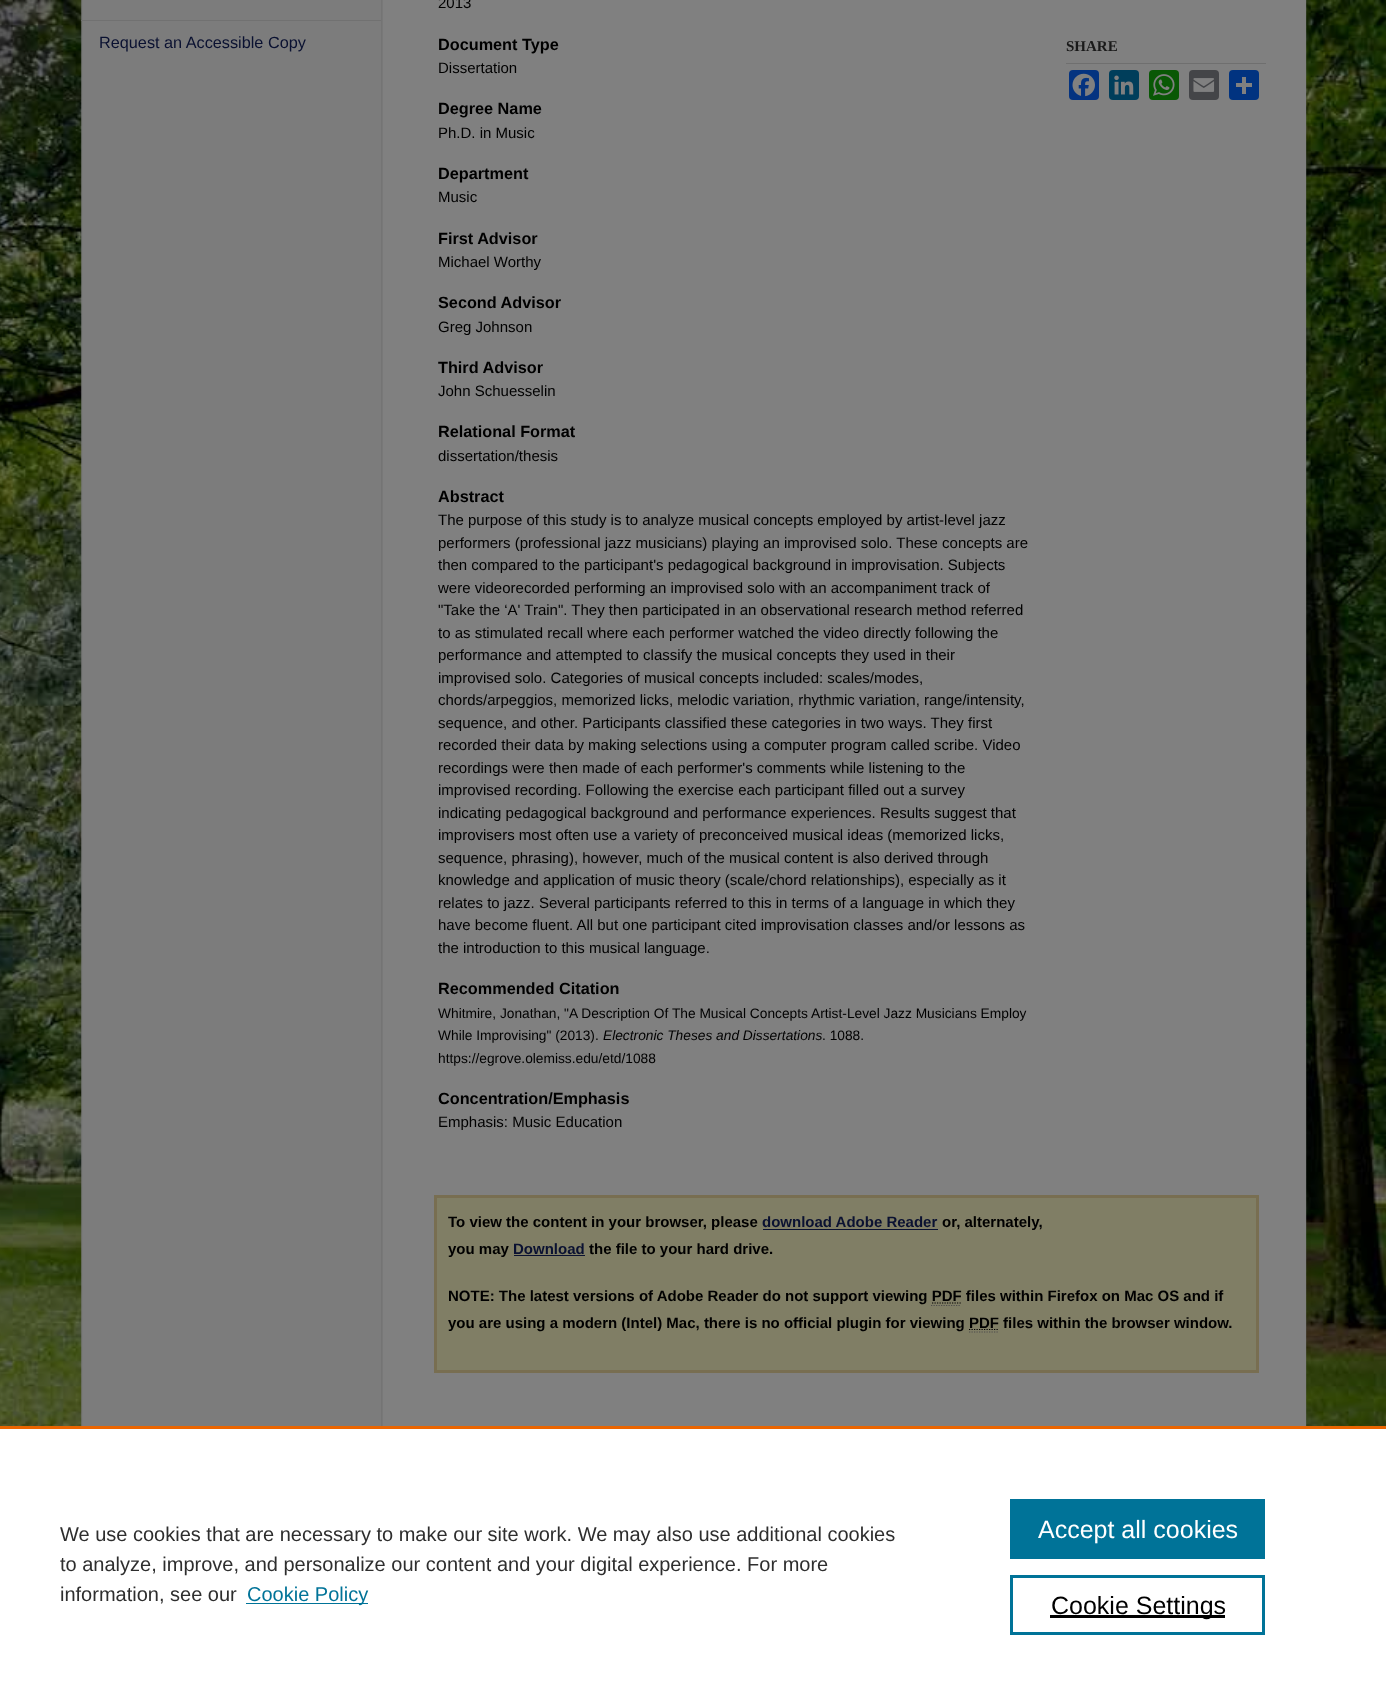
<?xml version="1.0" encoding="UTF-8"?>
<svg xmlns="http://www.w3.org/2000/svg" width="1386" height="1701">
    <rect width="100%" height="100%" fill="#FFFFFF"/>
    <image x="0" y="0" width="1386" height="1426" href="img_01.png"/>
    <image x="81" y="0" width="1226" height="1426" href="img_02.png"/>
    <rect x="81" y="20" width="300" height="1" fill="#717171"/>
    <text x="99" y="48" font-family="Liberation Sans" font-size="16.25" fill="#0A1131">Request an Accessible Copy</text>
    <rect x="1304" y="0" width="2" height="1426" fill="#808080"/>
    <text x="438" y="8" font-family="Liberation Sans" font-size="15" fill="#000000">2013</text>
    <text x="438" y="50" font-family="Liberation Sans" font-size="16.25" font-weight="700" fill="#000000">Document Type</text>
    <text x="438" y="73" font-family="Liberation Sans" font-size="15" fill="#000000">Dissertation</text>
    <text x="438" y="114" font-family="Liberation Sans" font-size="16.25" font-weight="700" fill="#000000">Degree Name</text>
    <text x="438" y="138" font-family="Liberation Sans" font-size="15" fill="#000000">Ph.D. in Music</text>
    <text x="438" y="179" font-family="Liberation Sans" font-size="16.25" font-weight="700" fill="#000000">Department</text>
    <text x="438" y="202" font-family="Liberation Sans" font-size="15" fill="#000000">Music</text>
    <text x="438" y="244" font-family="Liberation Sans" font-size="16.25" font-weight="700" fill="#000000">First Advisor</text>
    <text x="438" y="267" font-family="Liberation Sans" font-size="15" fill="#000000">Michael Worthy</text>
    <text x="438" y="308" font-family="Liberation Sans" font-size="16.25" font-weight="700" fill="#000000">Second Advisor</text>
    <text x="438" y="332" font-family="Liberation Sans" font-size="15" fill="#000000">Greg Johnson</text>
    <text x="438" y="373" font-family="Liberation Sans" font-size="16.25" font-weight="700" fill="#000000">Third Advisor</text>
    <text x="438" y="396" font-family="Liberation Sans" font-size="15" fill="#000000">John Schuesselin</text>
    <text x="438" y="437" font-family="Liberation Sans" font-size="16.25" font-weight="700" fill="#000000">Relational Format</text>
    <text x="438" y="461" font-family="Liberation Sans" font-size="15" fill="#000000">dissertation/thesis</text>
    <text x="438" y="502" font-family="Liberation Sans" font-size="16.25" font-weight="700" fill="#000000">Abstract</text>
    <text font-family="Liberation Sans" font-size="15" fill="#000000">
        <tspan x="438" y="525">The purpose of this study is to analyze musical concepts employed by artist-level jazz</tspan>
        <tspan x="438" y="548">performers (professional jazz musicians) playing an improvised solo. These concepts are</tspan>
        <tspan x="438" y="570">then compared to the participant's pedagogical background in improvisation. Subjects</tspan>
        <tspan x="438" y="593">were videorecorded performing an improvised solo with an accompaniment track of</tspan>
        <tspan x="438" y="615">"Take the ‘A' Train". They then participated in an observational research method referred</tspan>
        <tspan x="438" y="638">to as stimulated recall where each performer watched the video directly following the</tspan>
        <tspan x="438" y="660">performance and attempted to classify the musical concepts they used in their</tspan>
        <tspan x="438" y="683">improvised solo. Categories of musical concepts included: scales/modes,</tspan>
        <tspan x="438" y="705">chords/arpeggios, memorized licks, melodic variation, rhythmic variation, range/intensity,</tspan>
        <tspan x="438" y="728">sequence, and other. Participants classified these categories in two ways. They first</tspan>
        <tspan x="438" y="750">recorded their data by making selections using a computer program called scribe. Video</tspan>
        <tspan x="438" y="773">recordings were then made of each performer's comments while listening to the</tspan>
        <tspan x="438" y="795">improvised recording. Following the exercise each participant filled out a survey</tspan>
        <tspan x="438" y="818">indicating pedagogical background and performance experiences. Results suggest that</tspan>
        <tspan x="438" y="840">improvisers most often use a variety of preconceived musical ideas (memorized licks,</tspan>
        <tspan x="438" y="863">sequence, phrasing), however, much of the musical content is also derived through</tspan>
        <tspan x="438" y="885">knowledge and application of music theory (scale/chord relationships), especially as it</tspan>
        <tspan x="438" y="908">relates to jazz. Several participants referred to this in terms of a language in which they</tspan>
        <tspan x="438" y="930">have become fluent. All but one participant cited improvisation classes and/or lessons as</tspan>
        <tspan x="438" y="953">the introduction to this musical language.</tspan>
    </text>
    <text x="438" y="994" font-family="Liberation Sans" font-size="16.25" font-weight="700" fill="#000000">Recommended Citation</text>
    <text font-family="Liberation Sans" font-size="13.75" fill="#000000">
        <tspan x="438" y="1018">Whitmire, Jonathan, "A Description Of The Musical Concepts Artist-Level Jazz Musicians Employ</tspan>
        <tspan x="438" y="1040">While Improvising" (2013).</tspan>
    </text>
    <text x="603" y="1040" font-family="Liberation Sans" font-size="13.75" font-style="italic" fill="#000000">Electronic Theses and Dissertations</text>
    <text x="822" y="1040" font-family="Liberation Sans" font-size="13.75" fill="#000000">. 1088.</text>
    <text x="438" y="1063" font-family="Liberation Sans" font-size="13.75" fill="#000000">https://egrove.olemiss.edu/etd/1088</text>
    <text x="438" y="1104" font-family="Liberation Sans" font-size="16.25" font-weight="700" fill="#000000">Concentration/Emphasis</text>
    <text x="438" y="1127" font-family="Liberation Sans" font-size="15" fill="#000000">Emphasis: Music Education</text>
    <rect x="1066" y="63" width="200" height="1" fill="#6F6F6F"/>
    <text x="1066" y="51" font-family="Liberation Serif" font-size="15" font-weight="700" fill="#1A1A1A">SHARE</text>
    <rect x="1069" y="70" width="30" height="30" rx="4" fill="#043380"/>
    <image x="1072" y="73" width="23" height="24" href="img_03.png"/>
    <rect x="1109" y="70" width="30" height="30" rx="4" fill="#003E5B"/>
    <image x="1114" y="75" width="20" height="20" href="img_04.png"/>
    <rect x="1149" y="70" width="30" height="30" rx="4" fill="#095805"/>
    <image x="1153" y="74" width="22" height="22" href="img_05.png"/>
    <rect x="1189" y="70" width="30" height="30" rx="4" fill="#444548"/>
    <image x="1193" y="78" width="22" height="14" href="img_06.png"/>
    <rect x="1229" y="70" width="30" height="30" rx="4" fill="#013380"/>
    <rect x="1242" y="77" width="4" height="17" fill="#808080"/>
    <rect x="1236" y="83" width="16" height="4" fill="#808080"/>
    <rect x="435.5" y="1196.5" width="822" height="175" fill="#807E65" stroke="#786E51" stroke-width="3"/>
    <text x="448" y="1227" font-family="Liberation Sans" font-size="15" font-weight="700" fill="#000000">To view the content in your browser, please</text>
    <text x="762" y="1227" font-family="Liberation Sans" font-size="15" font-weight="700" fill="#0A1131">download Adobe Reader</text>
    <rect x="763" y="1229" width="175" height="1" fill="#0A1131"/>
    <text x="942" y="1227" font-family="Liberation Sans" font-size="15" font-weight="700" fill="#000000">or, alternately,</text>
    <text x="448" y="1254" font-family="Liberation Sans" font-size="15" font-weight="700" fill="#000000">you may</text>
    <text x="513" y="1254" font-family="Liberation Sans" font-size="15" font-weight="700" fill="#0A1131">Download</text>
    <rect x="514" y="1255" width="71" height="1" fill="#0A1131"/>
    <text x="589" y="1254" font-family="Liberation Sans" font-size="15" font-weight="700" fill="#000000">the file to your hard drive.</text>
    <text x="448" y="1301" font-family="Liberation Sans" font-size="15" font-weight="700" fill="#000000">NOTE: The latest versions of Adobe Reader do not support viewing PDF files within Firefox on Mac OS and if</text>
    <path d="M 932 1303 H 962" fill="none" stroke="#000000" stroke-width="1.2" stroke-dasharray="1.25 1.25"/>
    <path d="M 931 1305.5 H 961" fill="none" stroke="#4D4D4D" stroke-width="1.2" stroke-dasharray="1.25 1.25"/>
    <text x="448" y="1328" font-family="Liberation Sans" font-size="15" font-weight="700" fill="#000000">you are using a modern (Intel) Mac, there is no official plugin for viewing PDF files within the browser window.</text>
    <path d="M 969 1329.5 H 999" fill="none" stroke="#000000" stroke-width="1.2" stroke-dasharray="1.25 1.25"/>
    <path d="M 969 1332 H 999" fill="none" stroke="#4D4D4D" stroke-width="1.2" stroke-dasharray="1.25 1.25"/>
    <rect x="0" y="1426" width="1386" height="3" fill="#EB6500"/>
    <text font-family="Liberation Sans" font-size="20" fill="#2E2E2E">
        <tspan x="60" y="1541">We use cookies that are necessary to make our site work. We may also use additional cookies</tspan>
        <tspan x="60" y="1571">to analyze, improve, and personalize our content and your digital experience. For more</tspan>
        <tspan x="60" y="1601">information, see our</tspan>
    </text>
    <rect x="246" y="1603" width="122" height="1" fill="#007398"/>
    <text x="247" y="1601" font-family="Liberation Sans" font-size="20" fill="#007398">Cookie Policy</text>
    <rect x="1010" y="1499" width="255" height="60" fill="#007398"/>
    <text x="1038" y="1538" font-family="Liberation Sans" font-size="25" fill="#FFFFFF">Accept all cookies</text>
    <rect x="1011.5" y="1576.5" width="252" height="57" fill="none" stroke="#007398" stroke-width="3"/>
    <rect x="1050" y="1615" width="175" height="3" fill="#000000"/>
    <text x="1051" y="1614" font-family="Liberation Sans" font-size="25" fill="#000000">Cookie Settings</text>
</svg>
